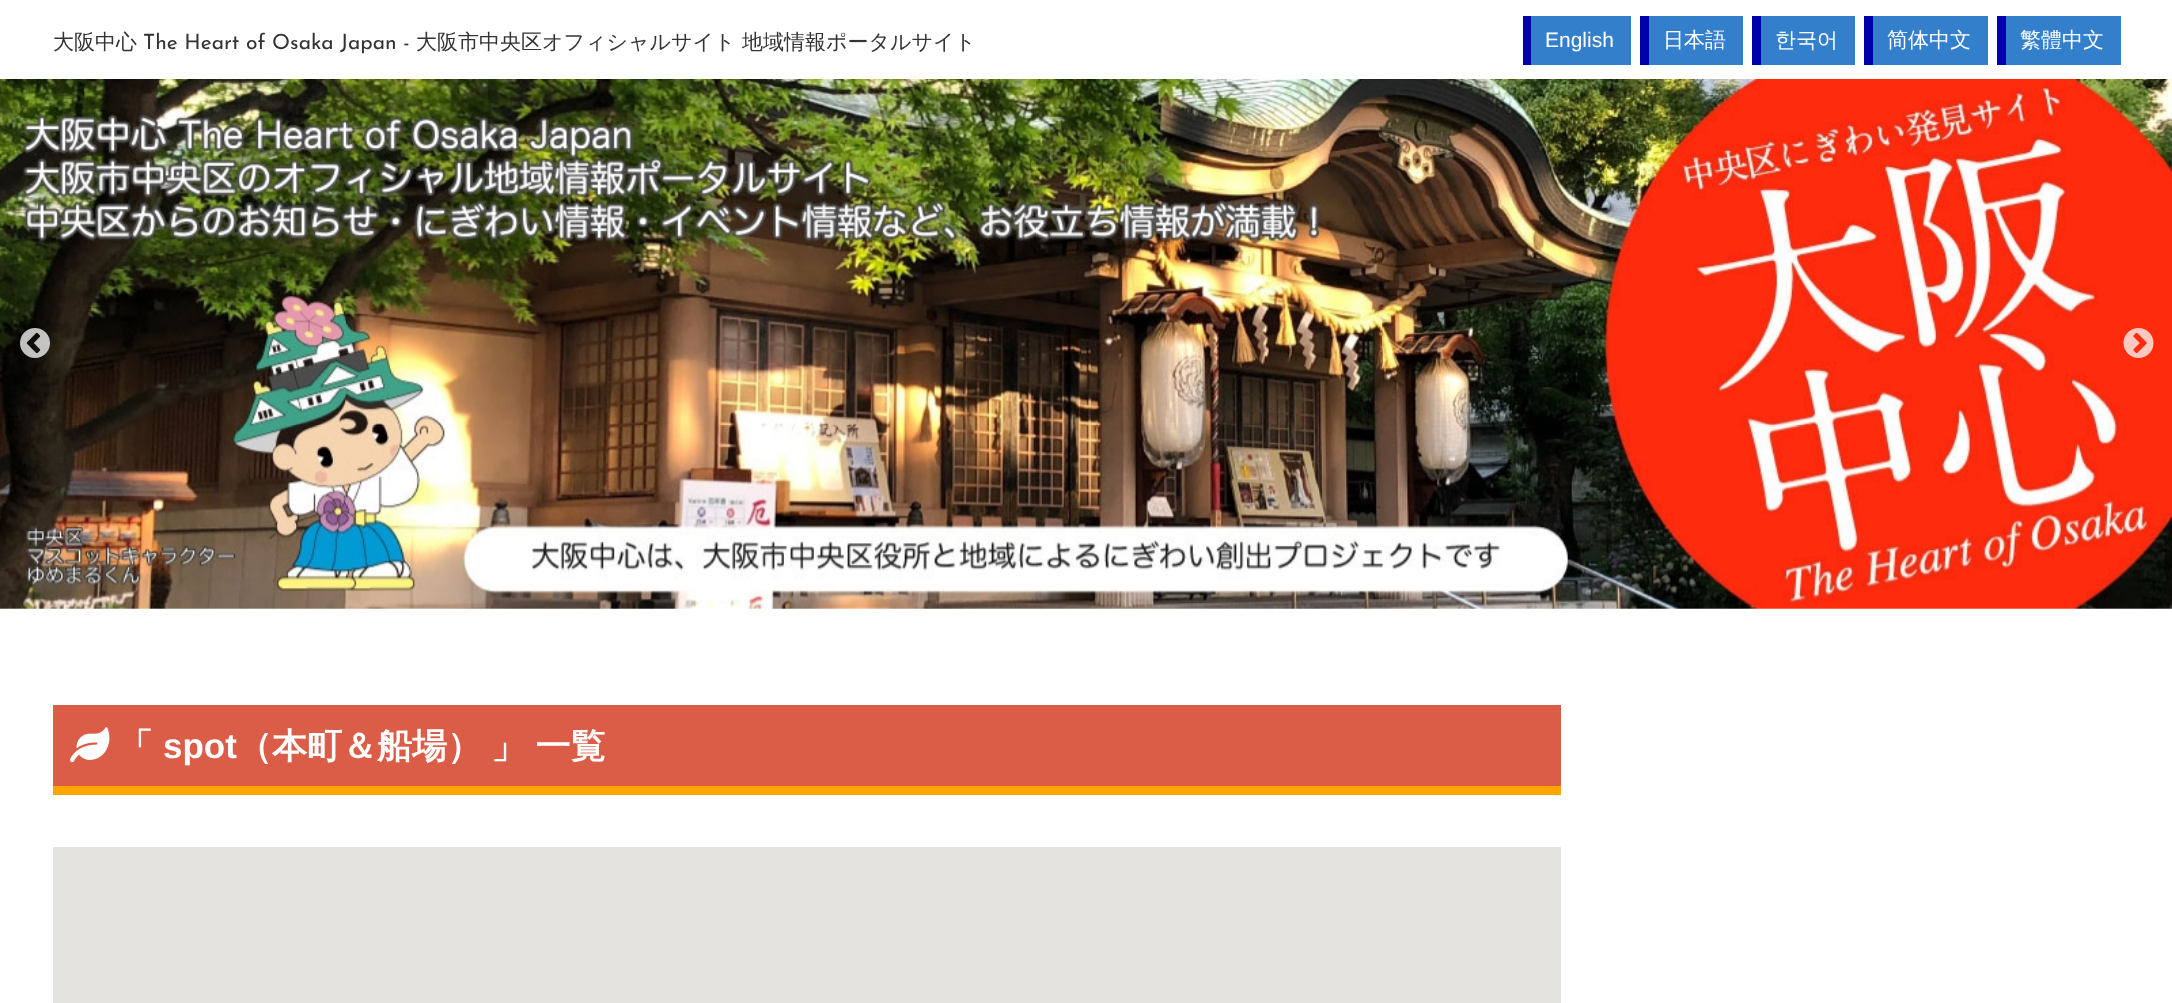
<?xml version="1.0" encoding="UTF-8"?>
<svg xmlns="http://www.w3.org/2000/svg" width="2172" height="1003">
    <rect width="100%" height="100%" fill="#FFFFFF"/>
    <text x="53" y="49" font-family="WenQuanYi Zen Hei" font-size="21" font-weight="500" fill="#333333">大阪中心</text>
    <text x="143" y="49" font-family="Josefin Sans" font-size="21" fill="#333333">The Heart of Osaka Japan -</text>
    <text x="416" y="49" font-family="WenQuanYi Zen Hei" font-size="21" font-weight="500" fill="#333333">大阪市中央区オフィシャルサイト</text>
    <text x="742" y="49" font-family="WenQuanYi Zen Hei" font-size="21" font-weight="500" fill="#333333">地域情報ポータルサイト</text>
    <rect x="1531" y="16" width="100" height="49" fill="#337FCC"/>
    <text x="1545" y="47" font-family="Liberation Sans" font-size="21" fill="#FFFFFF">English</text>
    <rect x="1523" y="16" width="8" height="49" fill="#0000AA"/>
    <rect x="1649" y="16" width="94" height="49" fill="#337FCC"/>
    <text x="1663" y="47" font-family="WenQuanYi Zen Hei" font-size="21" font-weight="500" fill="#FFFFFF">日本語</text>
    <rect x="1640" y="16" width="9" height="49" fill="#0000AA"/>
    <rect x="1761" y="16" width="94" height="49" fill="#337FCC"/>
    <text x="1775" y="47" font-family="WenQuanYi Zen Hei" font-size="21" font-weight="500" fill="#FFFFFF">한국어</text>
    <rect x="1752" y="16" width="9" height="49" fill="#0000AA"/>
    <rect x="1873" y="16" width="115" height="49" fill="#337FCC"/>
    <text x="1887" y="47" font-family="WenQuanYi Zen Hei" font-size="21" font-weight="500" fill="#FFFFFF">简体中文</text>
    <rect x="1864" y="16" width="9" height="49" fill="#0000AA"/>
    <rect x="2006" y="16" width="115" height="49" fill="#337FCC"/>
    <text x="2020" y="47" font-family="WenQuanYi Zen Hei" font-size="21" font-weight="500" fill="#FFFFFF">繁體中文</text>
    <rect x="1997" y="16" width="9" height="49" fill="#0000AA"/>
    <image x="0" y="79" width="2172" height="530" href="img_01.png"/>
    <image x="20" y="328" width="30" height="30" href="img_02.png"/>
    <image x="2123" y="328" width="31" height="30" href="img_03.png"/>
    <rect x="53" y="705" width="1508" height="81" fill="#DC5D47"/>
    <rect x="53" y="786" width="1508" height="9" fill="#FFA500"/>
    <image x="70" y="727" width="40" height="36" href="img_04.png"/>
    <text x="118" y="758" font-family="WenQuanYi Zen Hei" font-size="35" font-weight="700" fill="#FFFFFF">「</text>
    <text x="163" y="758" font-family="Liberation Sans" font-size="35" font-weight="700" fill="#FFFFFF">spot</text>
    <text x="237" y="758" font-family="WenQuanYi Zen Hei" font-size="35" font-weight="700" fill="#FFFFFF">（本町＆船場）</text>
    <text x="491" y="758" word-spacing="-1" font-family="WenQuanYi Zen Hei" font-size="35" font-weight="700" fill="#FFFFFF">」 一覧</text>
    <rect x="53" y="847" width="1508" height="156" fill="#E5E3DF"/>
</svg>
